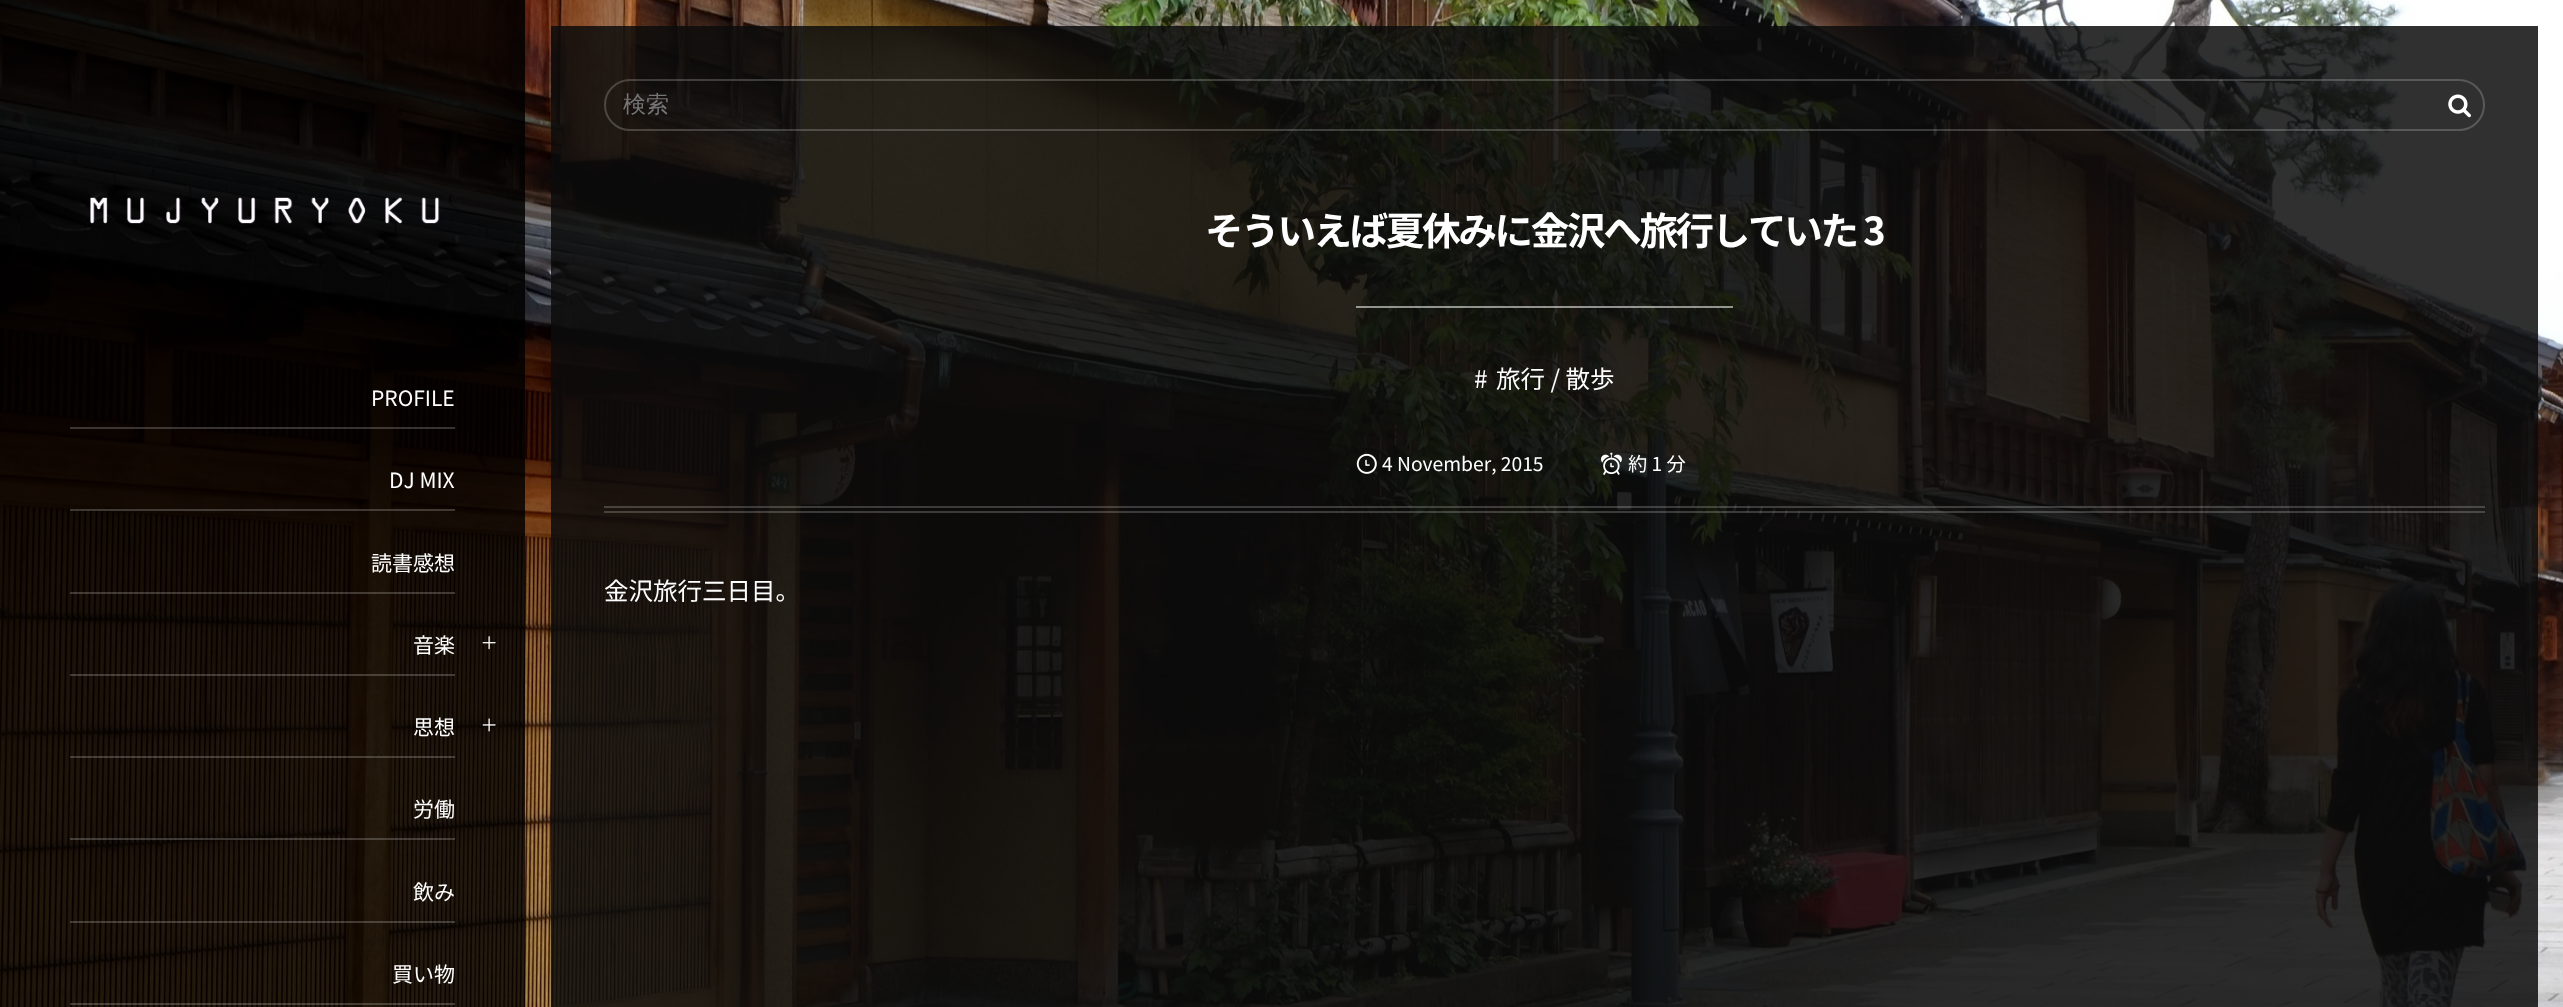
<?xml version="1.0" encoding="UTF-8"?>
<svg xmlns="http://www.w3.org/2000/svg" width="2563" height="1007">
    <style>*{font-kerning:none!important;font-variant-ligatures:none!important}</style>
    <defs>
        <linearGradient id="g1" gradientUnits="userSpaceOnUse" x1="262" y1="0" x2="263" y2="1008"><stop offset="0" stop-color="#000000" stop-opacity="0.52"/><stop offset="1" stop-color="#000000" stop-opacity="0.2"/></linearGradient>
    </defs>
    <rect width="100%" height="100%" fill="#FFFFFF"/>
    <image x="0" y="0" width="2563" height="1007" href="img_01.png"/>
    <rect x="0" y="0" width="525" height="1007" fill="#000000" fill-opacity="0.72"/>
    <rect x="0" y="0" width="525" height="1007" fill="url(#g1)"/>
    <image x="90" y="197" width="350" height="27" href="img_02.png"/>
    <rect x="70" y="427" width="385" height="2" fill="#FFFFFF" fill-opacity="0.2"/>
    <text x="371" y="406" font-family="Noto Sans JP" font-size="21" fill="#FFFFFF">PROFILE</text>
    <rect x="70" y="509" width="385" height="2" fill="#FFFFFF" fill-opacity="0.2"/>
    <text x="389" y="488" font-family="Noto Sans JP" font-size="21" fill="#FFFFFF">DJ MIX</text>
    <rect x="70" y="592" width="385" height="2" fill="#FFFFFF" fill-opacity="0.2"/>
    <text x="371" y="571" font-family="Noto Sans JP" font-size="21" fill="#FFFFFF">読書感想</text>
    <rect x="70" y="674" width="385" height="2" fill="#FFFFFF" fill-opacity="0.2"/>
    <text x="413" y="653" font-family="Noto Sans JP" font-size="21" fill="#FFFFFF">音楽</text>
    <image x="482" y="636" width="14" height="14" href="img_03.png"/>
    <rect x="70" y="756" width="385" height="2" fill="#FFFFFF" fill-opacity="0.2"/>
    <text x="413" y="735" font-family="Noto Sans JP" font-size="21" fill="#FFFFFF">思想</text>
    <image x="482" y="718" width="14" height="14" href="img_04.png"/>
    <rect x="70" y="838" width="385" height="2" fill="#FFFFFF" fill-opacity="0.2"/>
    <text x="413" y="817" font-family="Noto Sans JP" font-size="21" fill="#FFFFFF">労働</text>
    <rect x="70" y="921" width="385" height="2" fill="#FFFFFF" fill-opacity="0.2"/>
    <text x="413" y="900" font-family="Noto Sans JP" font-size="21" fill="#FFFFFF">飲み</text>
    <rect x="70" y="1003" width="385" height="2" fill="#FFFFFF" fill-opacity="0.2"/>
    <text x="392" y="982" font-family="Noto Sans JP" font-size="21" fill="#FFFFFF">買い物</text>
    <rect x="551" y="26" width="1987" height="981" fill="#0C0C0C" fill-opacity="0.85"/>
    <rect x="605" y="80" width="1879" height="50" rx="25" fill="none" stroke="#FFFFFF" stroke-opacity="0.2" stroke-width="2"/>
    <text x="623" y="112" font-family="WenQuanYi Zen Hei" font-size="23" font-weight="500" fill="#757575">検索</text>
    <image x="2448" y="94" width="23" height="24" href="img_05.png"/>
    <text x="1205" y="245" font-family="Noto Sans JP" font-size="38.5" font-weight="700" letter-spacing="-2.3" fill="#FFFFFF">そういえば夏休みに金沢へ旅行していた 3</text>
    <rect x="1356" y="306" width="377" height="2" fill="#FFFFFF" fill-opacity="0.54"/>
    <rect x="604" y="506" width="1881" height="2" fill="#FFFFFF" fill-opacity="0.2"/>
    <rect x="604" y="511" width="1881" height="2" fill="#FFFFFF" fill-opacity="0.2"/>
    <text x="1474" y="388" font-family="Noto Sans JP" font-size="24.5" fill="#FFFFFF">#</text>
    <text x="1496" y="388" font-family="Noto Sans JP" font-size="24.5" fill="#FFFFFF">旅行 / 散歩</text>
    <image x="1356" y="453" width="21" height="21" href="img_06.png"/>
    <text x="1382" y="471" font-family="Noto Sans JP" font-size="19.25" fill="#FFFFFF">4 November, 2015</text>
    <image x="1601" y="452" width="21" height="23" href="img_07.png"/>
    <text x="1628" y="471" font-family="Noto Sans JP" font-size="19.25" fill="#FFFFFF">約 1 分</text>
    <text x="604" y="600" font-family="Noto Sans JP" font-size="24.5" fill="#FFFFFF">金沢旅行三日目。</text>
</svg>
